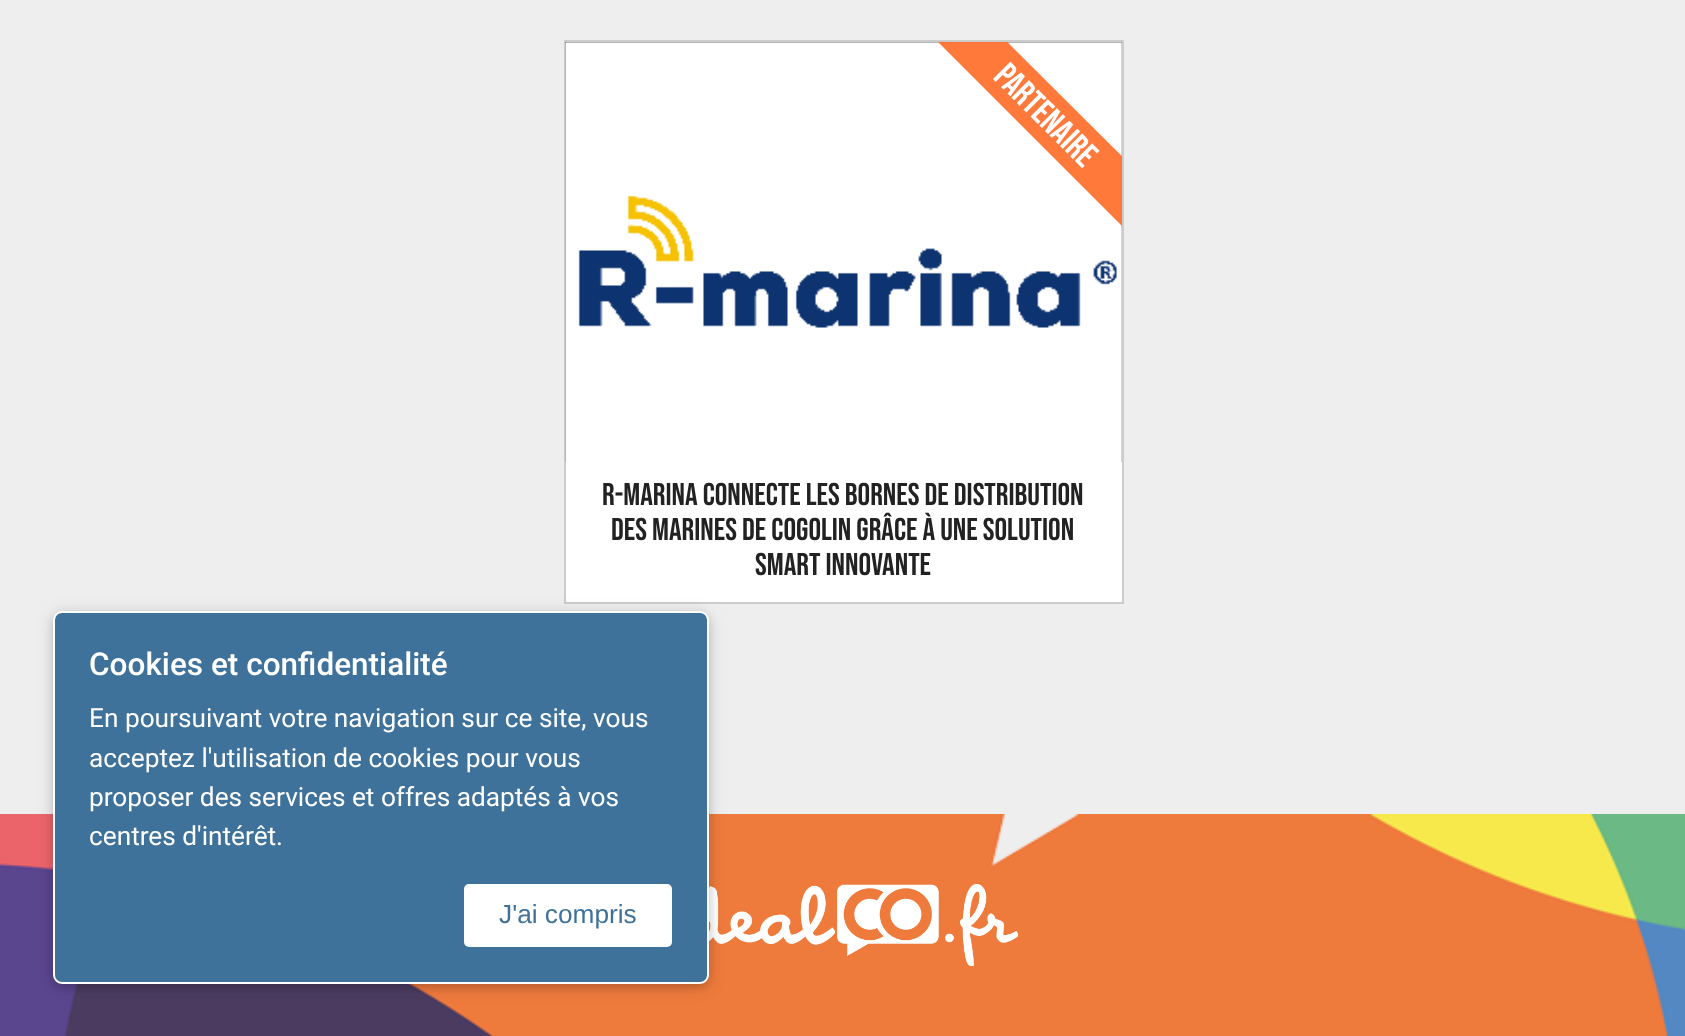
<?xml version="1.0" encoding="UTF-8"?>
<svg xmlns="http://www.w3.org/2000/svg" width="1685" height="1036">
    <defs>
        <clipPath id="clip1"><rect x="565" y="42" width="557" height="560"/></clipPath>
        <filter id="blur1" x="-50%" y="-200%" width="200%" height="500%"><feGaussianBlur stdDeviation="9"/></filter>
        <filter id="blur2" x="-50%" y="-200%" width="200%" height="500%"><feGaussianBlur stdDeviation="4.5"/></filter>
    </defs>
    <rect width="100%" height="100%" fill="#EEEEEE"/>
    <rect x="566" y="462" width="556" height="140" fill="#FFFFFF"/>
    <rect x="565" y="41" width="558" height="562" fill="none" stroke="#CCCCCC" stroke-width="2"/>
    <rect x="565" y="42" width="557" height="420" fill="#555555"/>
    <image x="565" y="42" width="557" height="421" href="img_01.png"/>
    <g clip-path="url(#clip1)">
        <path d="M 939 -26 L 1187 221 L 1152 256 L 905 9 Z" fill="#FF6A26" fill-opacity="0.9"/>
    </g>
    <text x="992" y="78" transform="rotate(45 992 78)" font-family="Bebas Neue" font-size="35" fill="#FFFFFF">PARTENAIRE</text>
    <text x="602" y="505" font-family="Bebas Neue" font-size="31.5" fill="#222222">R-marina connecte les bornes de distribution</text>
    <text x="611" y="540" font-family="Bebas Neue" font-size="31.5" fill="#222222">des Marines de Cogolin grâce à une solution</text>
    <text x="755" y="575" font-family="Bebas Neue" font-size="31.5" fill="#222222">smart innovante</text>
    <image x="0" y="814" width="1685" height="222" href="img_02.png"/>
    <image x="709" y="884" width="310" height="83" href="img_03.png"/>
    <rect x="53" y="614" width="656" height="373" rx="9" fill="#000000" fill-opacity="0.12" filter="url(#blur1)"/>
    <rect x="53" y="614" width="656" height="373" rx="9" fill="#000000" fill-opacity="0.16" filter="url(#blur2)"/>
    <rect x="54" y="612" width="654" height="371" rx="8" fill="#3F729B" stroke="#FFFFFF" stroke-width="2"/>
    <text x="89" y="675" font-family="Roboto" font-size="31.5" font-weight="500" fill="#FFFFFF">Cookies et confidentialité</text>
    <text font-family="Roboto" font-size="26.25" fill="#FFFFFF">
        <tspan x="89" y="727">En poursuivant votre navigation sur ce site, vous</tspan>
        <tspan x="89" y="767">acceptez l'utilisation de cookies pour vous</tspan>
        <tspan x="89" y="806">proposer des services et offres adaptés à vos</tspan>
        <tspan x="89" y="845">centres d'intérêt.</tspan>
    </text>
    <rect x="464" y="884" width="208" height="63" rx="5" fill="#FFFFFF"/>
    <text x="499" y="923" font-family="Liberation Sans" font-size="26.25" fill="#3F729B">J'ai compris</text>
</svg>
